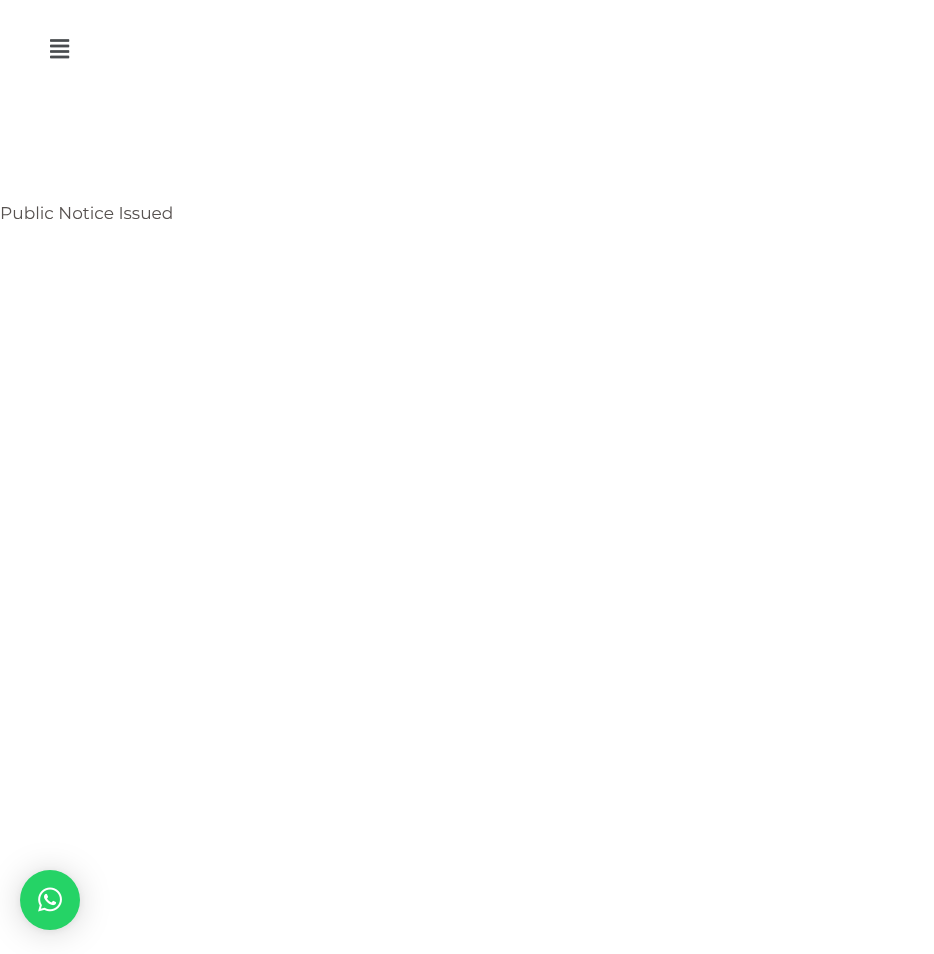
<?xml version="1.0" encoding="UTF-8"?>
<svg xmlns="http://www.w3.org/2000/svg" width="934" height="954">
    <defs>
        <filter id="blur1" x="-50%" y="-200%" width="200%" height="500%"><feGaussianBlur stdDeviation="16"/></filter>
        <filter id="blur2" x="-50%" y="-200%" width="200%" height="500%"><feGaussianBlur stdDeviation="3"/></filter>
    </defs>
    <rect width="100%" height="100%" fill="#FFFFFF"/>
    <image x="50" y="39" width="20" height="20" href="img_01.png"/>
    <text x="0" y="219" font-family="Montserrat" font-size="17" fill="#575250">Public Notice Issued</text>
    <rect x="20" y="872" width="60" height="60" rx="30" fill="#000000" fill-opacity="0.16" filter="url(#blur1)"/>
    <rect x="20" y="871" width="60" height="60" rx="30" fill="#000000" fill-opacity="0.06" filter="url(#blur2)"/>
    <circle cx="50" cy="900" r="30" fill="#25D366"/>
    <image x="38" y="887" width="24" height="25" href="img_02.png"/>
</svg>
